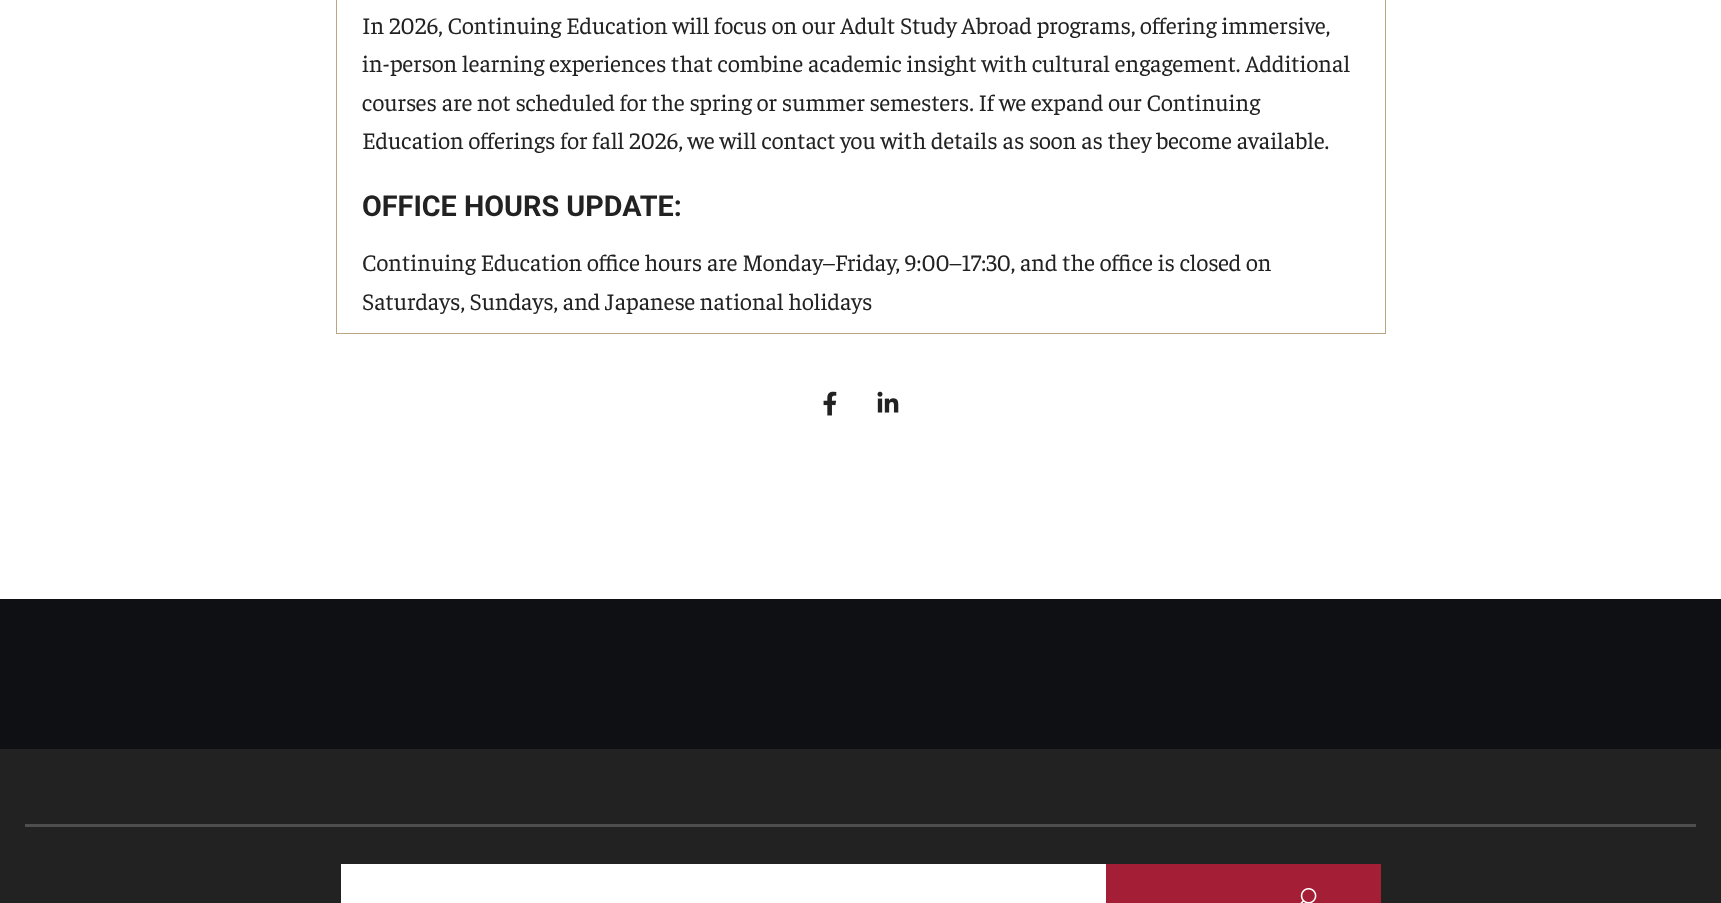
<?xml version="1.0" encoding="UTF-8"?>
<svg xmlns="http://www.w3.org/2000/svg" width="1721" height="903">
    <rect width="100%" height="100%" fill="#FFFFFF"/>
    <rect x="336.5" y="-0.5" width="1049" height="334" fill="none" stroke="#BAA682"/>
    <text font-family="Faustina" font-size="23.75" fill="#222222">
        <tspan x="362" y="34">In 2026, Continuing Education will focus on our Adult Study Abroad programs, offering immersive,</tspan>
        <tspan x="362" y="72">in-person learning experiences that combine academic insight with cultural engagement. Additional</tspan>
        <tspan x="362" y="111">courses are not scheduled for the spring or summer semesters. If we expand our Continuing</tspan>
        <tspan x="362" y="149">Education offerings for fall 2026, we will contact you with details as soon as they become available.</tspan>
    </text>
    <text x="362" y="216" font-family="Roboto" font-size="28.75" font-weight="700" fill="#222222">OFFICE HOURS UPDATE:</text>
    <text font-family="Faustina" font-size="23.75" fill="#222222">
        <tspan x="362" y="271">Continuing Education office hours are Monday–Friday, 9:00–17:30, and the office is closed on</tspan>
        <tspan x="362" y="310">Saturdays, Sundays, and Japanese national holidays</tspan>
    </text>
    <image x="823" y="391" width="14" height="25" href="img_01.png"/>
    <image x="877" y="391" width="22" height="22" href="img_02.png"/>
    <rect x="0" y="749" width="1721" height="154" fill="#222222"/>
    <rect x="0" y="599" width="1721" height="150" fill="#0E1014"/>
    <rect x="25" y="824" width="1671" height="3" fill="#4E4E4E"/>
    <rect x="341" y="864" width="765" height="39" fill="#FFFFFF"/>
    <rect x="1106" y="864" width="275" height="39" fill="#A41E35"/>
    <image x="1300" y="888" width="17" height="15" href="img_03.png"/>
</svg>
